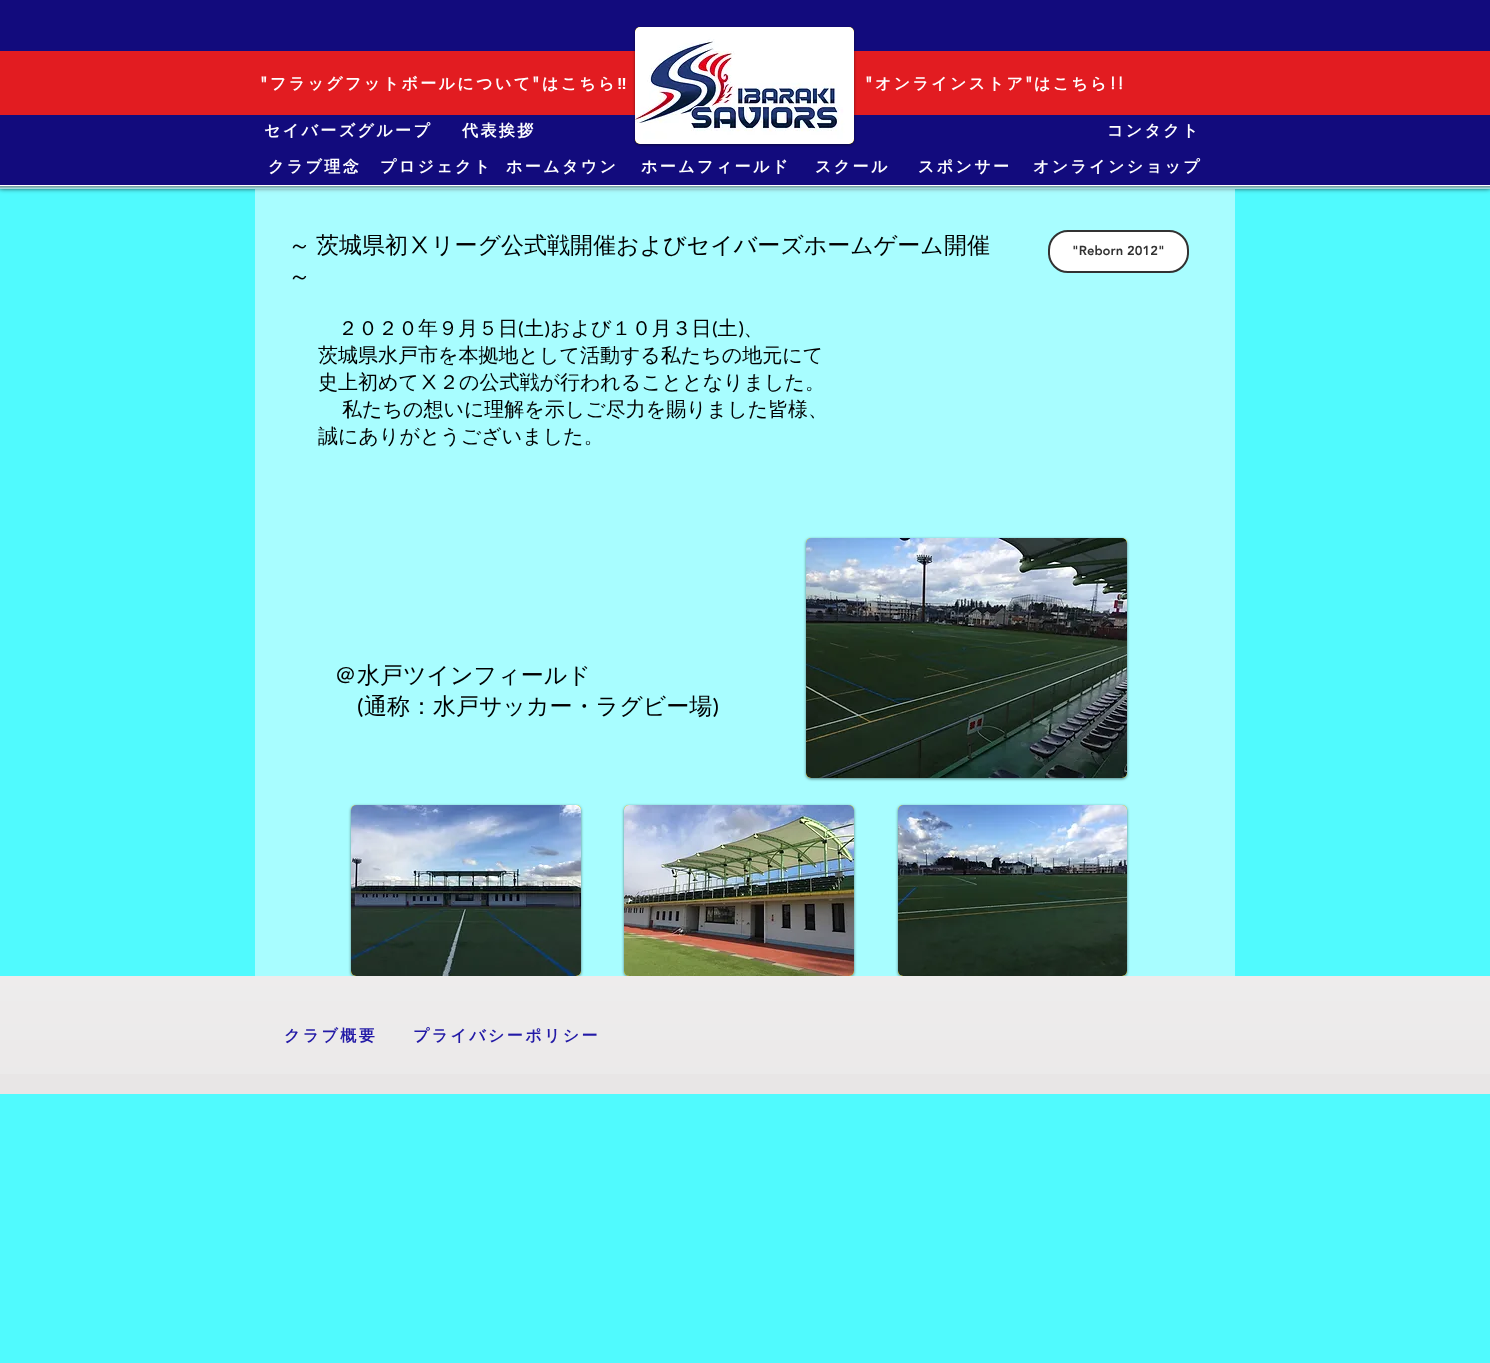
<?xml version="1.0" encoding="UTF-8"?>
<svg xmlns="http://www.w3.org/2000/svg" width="1490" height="1363">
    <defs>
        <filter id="blur1" x="-50%" y="-200%" width="200%" height="500%"><feGaussianBlur stdDeviation="2.5"/></filter>
        <filter id="blur2" x="-50%" y="-200%" width="200%" height="500%"><feGaussianBlur stdDeviation="2"/></filter>
        <filter id="blur3" x="-50%" y="-200%" width="200%" height="500%"><feGaussianBlur stdDeviation="1.5"/></filter>
    </defs>
    <rect width="100%" height="100%" fill="#50FAFE"/>
    <rect x="0" y="0" width="1490" height="189" fill="#000000" fill-opacity="0.5" filter="url(#blur1)"/>
    <rect x="0" y="186" width="1490" height="3" fill="#B9FDFF"/>
    <rect x="255" y="189" width="980" height="787" fill="#FFFFFF" fill-opacity="0.5"/>
    <rect x="-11" y="-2" width="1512" height="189" rx="5" fill="#000000" fill-opacity="0.6" filter="url(#blur2)"/>
    <rect x="-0.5" y="-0.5" width="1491" height="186" fill="#120B7D" stroke="#FFFFFF"/>
    <rect x="0" y="51" width="1490" height="64" fill="#E21C21"/>
    <rect x="635" y="28" width="219" height="117" rx="5" fill="#000000" fill-opacity="0.5" filter="url(#blur3)"/>
    <rect x="635" y="27" width="219" height="117" rx="5" fill="#FDD80D"/>
    <image x="635" y="27" width="219" height="117" href="img_01.png"/>
    <text x="260" y="89" font-family="futura" font-size="16" font-weight="700" letter-spacing="2.4" fill="#FFFFFF">"</text>
    <text x="270" y="89" font-family="WenQuanYi Zen Hei" font-size="16" font-weight="700" letter-spacing="2.4" fill="#FFFFFF">フラッグフットボールについて</text>
    <text x="532" y="89" font-family="futura" font-size="16" font-weight="700" letter-spacing="2.4" fill="#FFFFFF">"</text>
    <text x="542" y="89" font-family="WenQuanYi Zen Hei" font-size="16" font-weight="700" letter-spacing="2.4" fill="#FFFFFF">はこちら</text>
    <text x="617" y="89" font-family="Liberation Sans" font-size="16" font-weight="700" letter-spacing="2.4" fill="#FFFFFF">‼</text>
    <text x="865" y="89" font-family="futura" font-size="16" font-weight="700" letter-spacing="2.4" fill="#FFFFFF">"</text>
    <text x="875" y="89" font-family="WenQuanYi Zen Hei" font-size="16" font-weight="700" letter-spacing="2.4" fill="#FFFFFF">オンラインストア</text>
    <text x="1025" y="89" font-family="futura" font-size="16" font-weight="700" letter-spacing="2.4" fill="#FFFFFF">"</text>
    <text x="1034" y="89" font-family="WenQuanYi Zen Hei" font-size="16" font-weight="700" letter-spacing="2.4" fill="#FFFFFF">はこちら</text>
    <text x="1110" y="89" font-family="futura" font-size="16" font-weight="700" letter-spacing="2.4" fill="#FFFFFF">!!</text>
    <text x="264" y="136" font-family="WenQuanYi Zen Hei" font-size="16" font-weight="700" letter-spacing="2.4" fill="#FFFFFF">セイバーズグループ</text>
    <text x="462" y="136" font-family="WenQuanYi Zen Hei" font-size="16" font-weight="700" letter-spacing="2.4" fill="#FFFFFF">代表挨拶</text>
    <text x="1107" y="136" font-family="WenQuanYi Zen Hei" font-size="16" font-weight="700" letter-spacing="2.4" fill="#FFFFFF">コンタクト</text>
    <text x="268" y="172" font-family="WenQuanYi Zen Hei" font-size="16" font-weight="700" letter-spacing="2.4" fill="#FFFFFF">クラブ理念</text>
    <text x="380" y="172" font-family="WenQuanYi Zen Hei" font-size="16" font-weight="700" letter-spacing="2.4" fill="#FFFFFF">プロジェクト</text>
    <text x="506" y="172" font-family="WenQuanYi Zen Hei" font-size="16" font-weight="700" letter-spacing="2.4" fill="#FFFFFF">ホームタウン</text>
    <text x="641" y="172" font-family="WenQuanYi Zen Hei" font-size="16" font-weight="700" letter-spacing="2.4" fill="#FFFFFF">ホームフィールド</text>
    <text x="815" y="172" font-family="WenQuanYi Zen Hei" font-size="16" font-weight="700" letter-spacing="2.4" fill="#FFFFFF">スクール</text>
    <text x="918" y="172" font-family="WenQuanYi Zen Hei" font-size="16" font-weight="700" letter-spacing="2.4" fill="#FFFFFF">スポンサー</text>
    <text x="1033" y="172" font-family="WenQuanYi Zen Hei" font-size="16" font-weight="700" letter-spacing="2.4" fill="#FFFFFF">オンラインショップ</text>
    <text font-family="WenQuanYi Zen Hei" font-size="23" font-weight="500" fill="#000000">
        <tspan x="288" y="253" word-spacing="-2">～ 茨城県初Ⅹリーグ公式戦開催およびセイバーズホームゲーム開催</tspan>
        <tspan x="288" y="284">～</tspan>
    </text>
    <rect x="1049" y="231" width="139" height="41" rx="19" fill="#FFFFFF" stroke="#323232" stroke-width="2"/>
    <text x="1072" y="255" font-family="'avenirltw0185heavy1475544'" font-size="13" font-weight="900" fill="#323232">"Reborn 2012"</text>
    <text x="338" y="335" font-family="WenQuanYi Zen Hei" font-size="20" font-weight="500" fill="#000000">２０２０年９月５日 土 および１０月３日 土 、</text>
    <text x="518" y="335" font-family="Syne" font-size="20" fill="#000000">(</text>
    <text x="544" y="335" font-family="Syne" font-size="20" fill="#000000">)</text>
    <text x="712" y="335" font-family="Syne" font-size="20" fill="#000000">(</text>
    <text x="738" y="335" font-family="Syne" font-size="20" fill="#000000">)</text>
    <text font-family="WenQuanYi Zen Hei" font-size="20" font-weight="500" fill="#000000">
        <tspan x="318" y="362">茨城県水戸市を本拠地として活動する私たちの地元にて</tspan>
        <tspan x="318" y="389">史上初めてⅩ２の公式戦が行われることとなりました。</tspan>
    </text>
    <text x="342" y="416" font-family="WenQuanYi Zen Hei" font-size="20" font-weight="500" fill="#000000">私たちの想いに理解を示しご尽力を賜りました皆様、</text>
    <text x="318" y="443" font-family="WenQuanYi Zen Hei" font-size="20" font-weight="500" fill="#000000">誠にありがとうございました。</text>
    <text x="334" y="683" font-family="WenQuanYi Zen Hei" font-size="23" font-weight="500" fill="#000000">＠水戸ツインフィールド</text>
    <text x="357" y="714" font-family="Syne" font-size="23" fill="#000000">(</text>
    <text x="364" y="714" font-family="WenQuanYi Zen Hei" font-size="23" font-weight="500" fill="#000000">通称：水戸サッカー・ラグビー場</text>
    <text x="712" y="714" font-family="Syne" font-size="23" fill="#000000">)</text>
    <rect x="806" y="539" width="321" height="240" rx="5" fill="#000000" fill-opacity="0.5" filter="url(#blur3)"/>
    <rect x="806" y="538" width="321" height="240" rx="5" fill="#FDD80D"/>
    <image x="806" y="538" width="321" height="240" href="img_02.png"/>
    <rect x="351" y="806" width="230" height="171" rx="5" fill="#000000" fill-opacity="0.5" filter="url(#blur3)"/>
    <rect x="351" y="805" width="230" height="171" rx="5" fill="#FDD80D"/>
    <image x="351" y="805" width="230" height="171" href="img_03.png"/>
    <rect x="624" y="806" width="230" height="171" rx="5" fill="#000000" fill-opacity="0.5" filter="url(#blur3)"/>
    <rect x="624" y="805" width="230" height="171" rx="5" fill="#FDD80D"/>
    <image x="624" y="805" width="230" height="171" href="img_04.png"/>
    <rect x="898" y="806" width="229" height="171" rx="5" fill="#000000" fill-opacity="0.5" filter="url(#blur3)"/>
    <rect x="898" y="805" width="229" height="171" rx="5" fill="#FDD80D"/>
    <image x="898" y="805" width="229" height="171" href="img_05.png"/>
    <rect x="0" y="976" width="1490" height="118" fill="#E8E6E6"/>
    <image x="0" y="976" width="1490" height="98" href="img_06.png"/>
    <text x="284" y="1041" font-family="WenQuanYi Zen Hei" font-size="16" font-weight="700" letter-spacing="2.4" fill="#2219A6">クラブ概要</text>
    <text x="413" y="1041" font-family="WenQuanYi Zen Hei" font-size="16" font-weight="700" letter-spacing="2.4" fill="#2219A6">プライバシーポリシー</text>
</svg>
